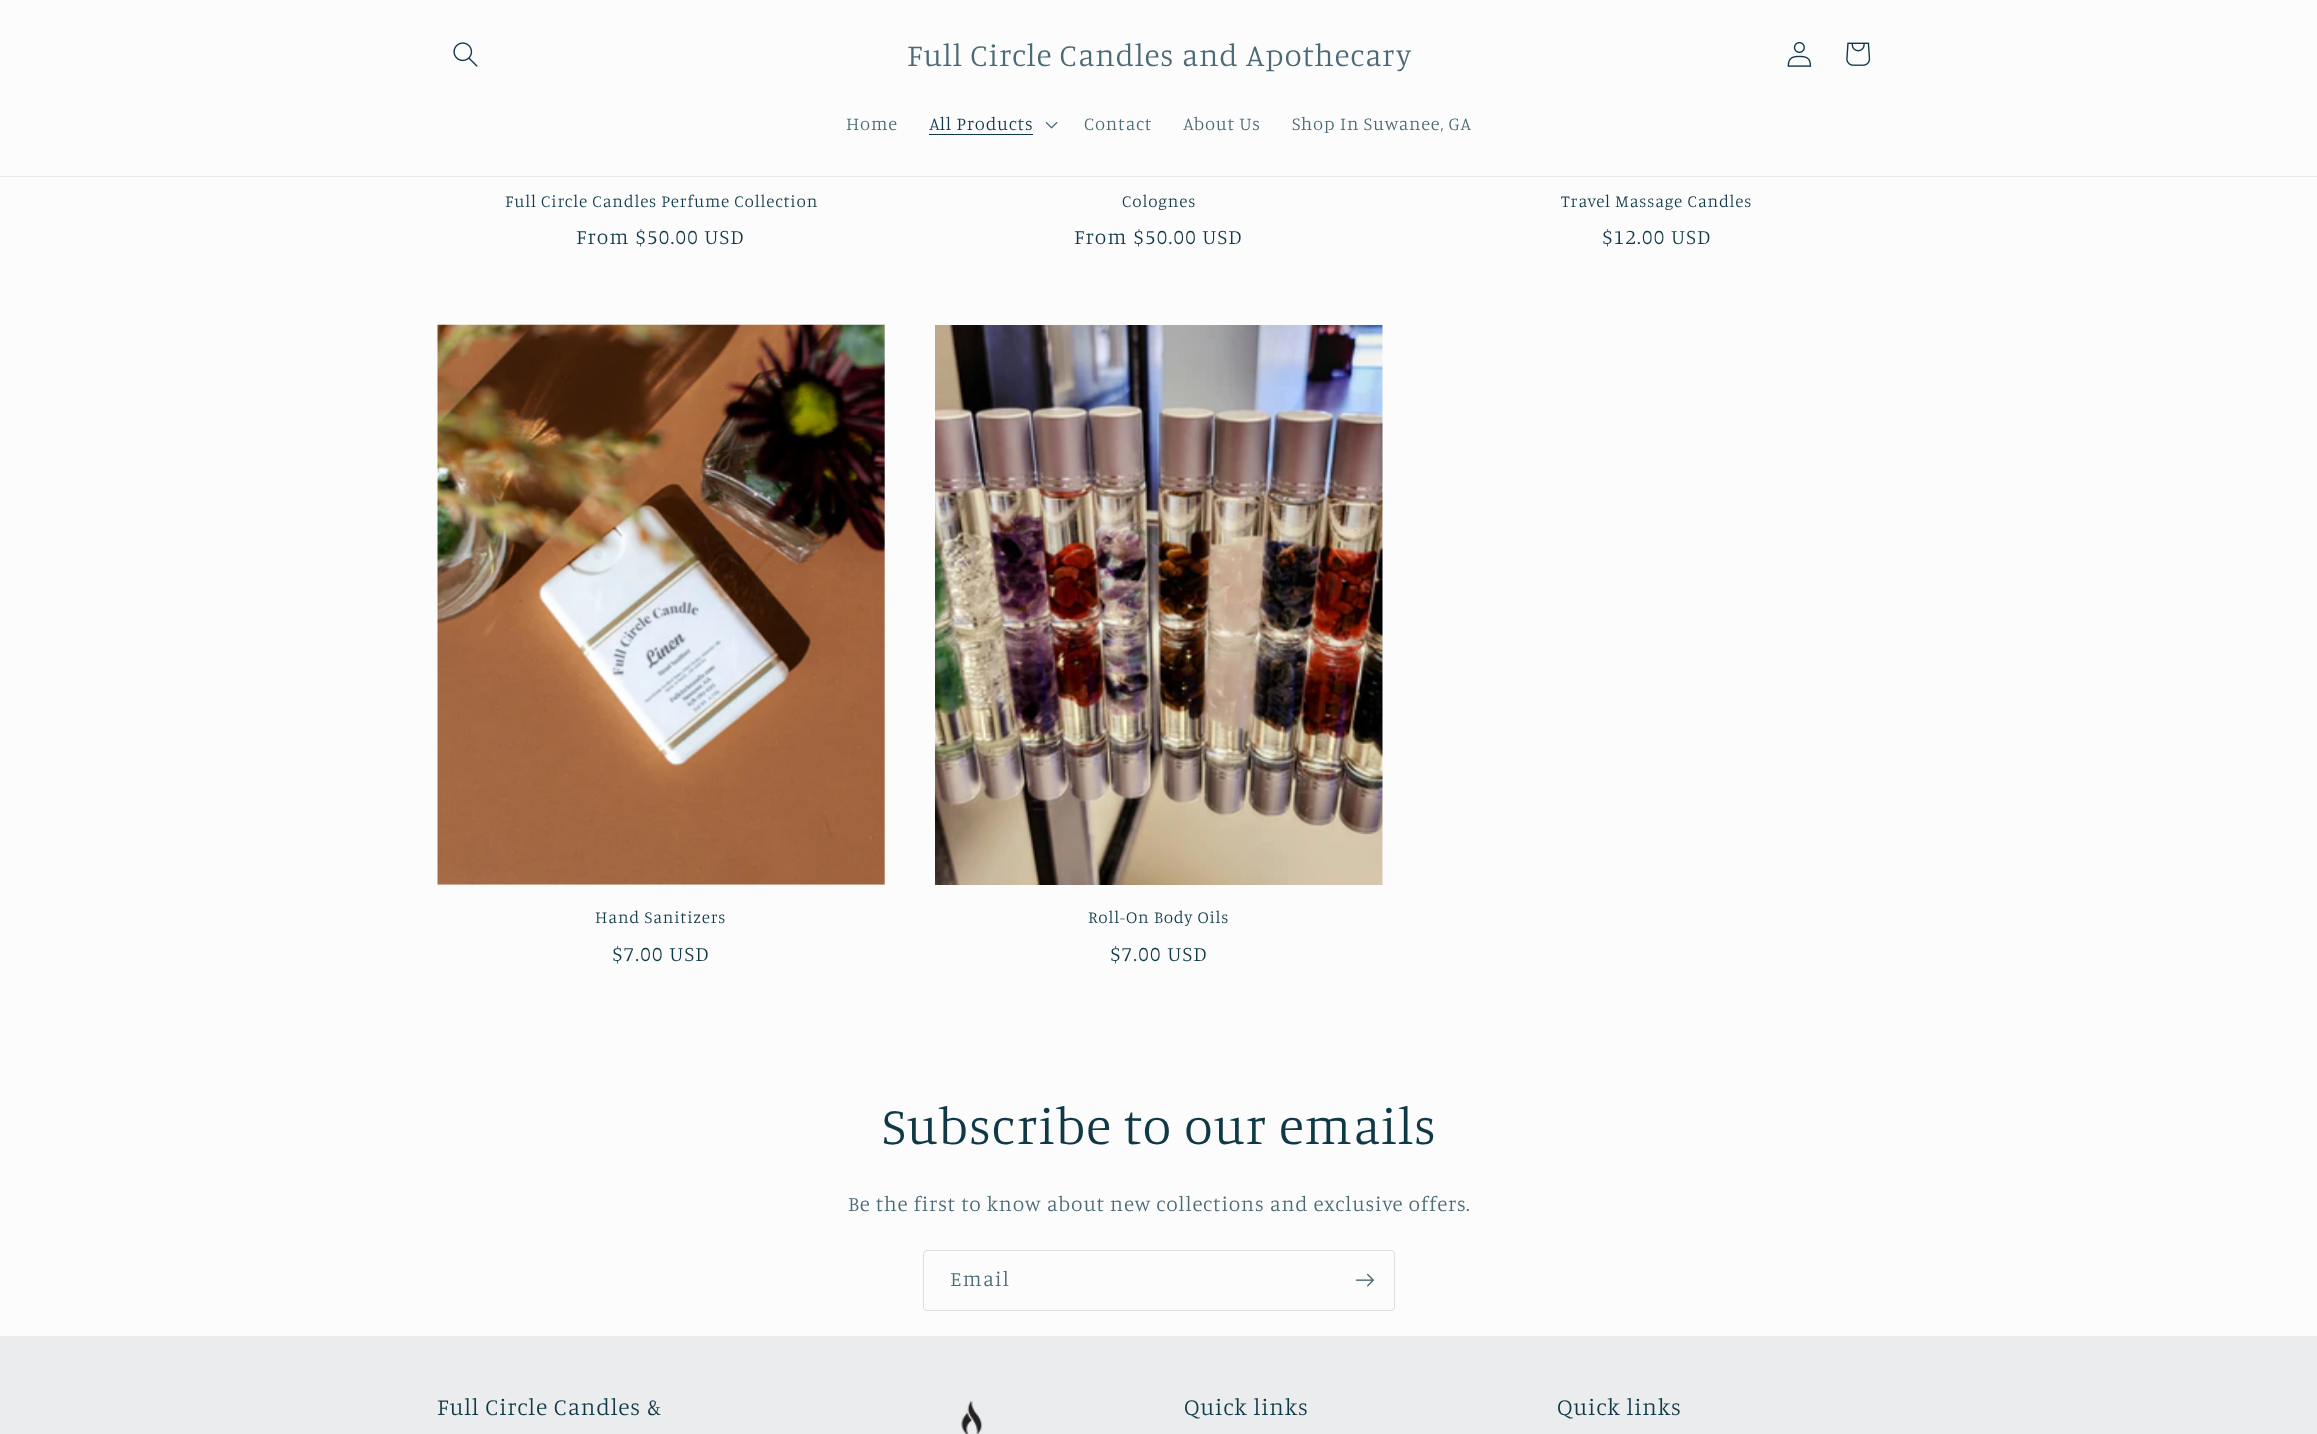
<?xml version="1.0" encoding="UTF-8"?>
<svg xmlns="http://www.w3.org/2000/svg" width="2317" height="1434">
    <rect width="100%" height="100%" fill="#FCFCFC"/>
    <rect x="0" y="176" width="2317" height="1" fill="#E9ECEE"/>
    <image x="453" y="42" width="25" height="25" href="img_01.png"/>
    <text x="907" y="66" font-family="Manuale" font-size="31.5" font-weight="300" letter-spacing="0.8" fill="#4B6A75">Full Circle Candles and Apothecary</text>
    <image x="1787" y="41" width="25" height="26" href="img_02.png"/>
    <image x="1846" y="42" width="25" height="24" href="img_03.png"/>
    <text x="846" y="130" font-family="Manuale" font-size="18.4" font-weight="300" letter-spacing="0.8" fill="#4B6A75">Home</text>
    <text x="929" y="130" font-family="Manuale" font-size="18.4" font-weight="300" letter-spacing="0.8" fill="#103948">All Products</text>
    <rect x="929" y="134" width="104" height="1" fill="#103948"/>
    <image x="1045" y="122" width="13" height="7" href="img_04.png"/>
    <text x="1084" y="130" font-family="Manuale" font-size="18.4" font-weight="300" letter-spacing="0.8" fill="#4B6A75">Contact</text>
    <text x="1183" y="130" font-family="Manuale" font-size="18.4" font-weight="300" letter-spacing="0.8" fill="#4B6A75">About Us</text>
    <text x="1292" y="130" font-family="Manuale" font-size="18.4" font-weight="300" letter-spacing="0.8" fill="#4B6A75">Shop In Suwanee, GA</text>
    <text x="505" y="207" font-family="Manuale" font-size="17.1" font-weight="300" letter-spacing="0.8" fill="#103948">Full Circle Candles Perfume Collection</text>
    <text x="576" y="244" font-family="Manuale" font-size="21" font-weight="300" letter-spacing="1.25" fill="#103948">From $50.00 USD</text>
    <text x="1122" y="207" font-family="Manuale" font-size="17.1" font-weight="300" letter-spacing="0.8" fill="#103948">Colognes</text>
    <text x="1074" y="244" font-family="Manuale" font-size="21" font-weight="300" letter-spacing="1.25" fill="#103948">From $50.00 USD</text>
    <text x="1561" y="207" font-family="Manuale" font-size="17.1" font-weight="300" letter-spacing="0.8" fill="#103948">Travel Massage Candles</text>
    <text x="1602" y="244" font-family="Manuale" font-size="21" font-weight="300" letter-spacing="1.25" fill="#103948">$12.00 USD</text>
    <image x="437" y="324" width="448" height="561" href="img_05.png"/>
    <text x="595" y="923" font-family="Manuale" font-size="17.1" font-weight="300" letter-spacing="0.8" fill="#103948">Hand Sanitizers</text>
    <text x="612" y="961" font-family="Manuale" font-size="21" font-weight="300" letter-spacing="1.25" fill="#103948">$7.00 USD</text>
    <image x="935" y="325" width="448" height="560" href="img_06.png"/>
    <text x="1088" y="923" font-family="Manuale" font-size="17.1" font-weight="300" letter-spacing="0.8" fill="#103948">Roll-On Body Oils</text>
    <text x="1110" y="961" font-family="Manuale" font-size="21" font-weight="300" letter-spacing="1.25" fill="#103948">$7.00 USD</text>
    <text x="882" y="1144" font-family="Manuale" font-size="52.5" font-weight="300" letter-spacing="0.8" fill="#103948">Subscribe to our emails</text>
    <text x="848" y="1211" font-family="Manuale" font-size="21" font-weight="300" letter-spacing="0.8" fill="#4B6A75">Be the first to know about new collections and exclusive offers.</text>
    <rect x="923.5" y="1250.5" width="471" height="60" rx="3.5" fill="none" stroke="#D9DFE1"/>
    <text x="950" y="1286" font-family="Manuale" font-size="21" font-weight="300" letter-spacing="1.25" fill="#4B6A75">Email</text>
    <image x="1355" y="1273" width="19" height="14" href="img_07.png"/>
    <rect x="0" y="1336" width="2317" height="98" fill="#EBECED"/>
    <text x="437" y="1415" font-family="Manuale" font-size="23.6" font-weight="300" letter-spacing="0.8" fill="#103948">Full Circle Candles &amp;</text>
    <image x="961" y="1400" width="22" height="34" href="img_08.png"/>
    <text x="1184" y="1415" font-family="Manuale" font-size="23.6" font-weight="300" letter-spacing="0.8" fill="#103948">Quick links</text>
    <text x="1557" y="1415" font-family="Manuale" font-size="23.6" font-weight="300" letter-spacing="0.8" fill="#103948">Quick links</text>
</svg>
